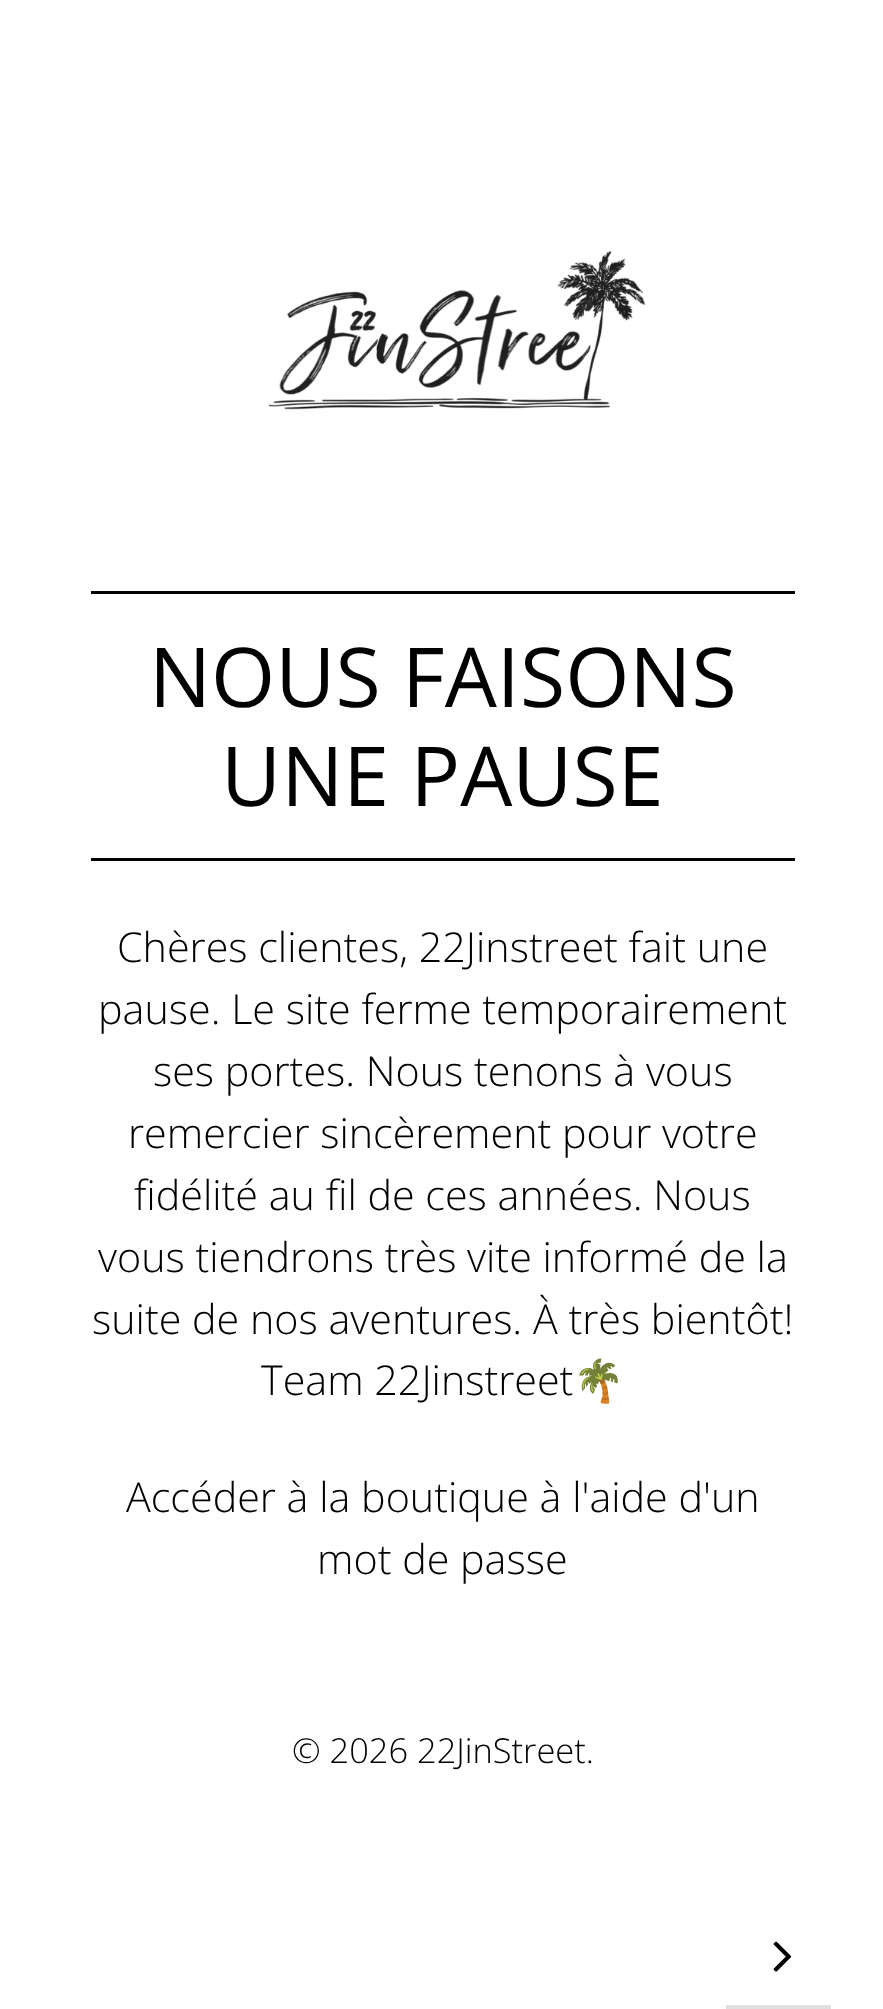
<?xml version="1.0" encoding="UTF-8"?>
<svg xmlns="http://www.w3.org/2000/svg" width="883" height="2009">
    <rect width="100%" height="100%" fill="#FFFFFF"/>
    <image x="268" y="251" width="378" height="159" href="img_01.png"/>
    <rect x="91" y="591" width="704" height="3" fill="#000000"/>
    <rect x="91" y="858" width="704" height="3" fill="#000000"/>
    <text x="149" y="707" font-family="Open Sans" font-size="82.5" fill="#000000">NOUS FAISONS</text>
    <text x="221" y="806" font-family="Open Sans" font-size="82.5" fill="#000000">UNE PAUSE</text>
    <text x="117" y="962" font-family="Open Sans" font-size="41.25" font-weight="300" fill="#000000">Chères clientes, 22Jinstreet fait une</text>
    <text x="98" y="1024" font-family="Open Sans" font-size="41.25" font-weight="300" fill="#000000">pause. Le site ferme temporairement</text>
    <text x="153" y="1086" font-family="Open Sans" font-size="41.25" font-weight="300" fill="#000000">ses portes. Nous tenons à vous</text>
    <text x="128" y="1148" font-family="Open Sans" font-size="41.25" font-weight="300" fill="#000000">remercier sincèrement pour votre</text>
    <text x="134" y="1210" font-family="Open Sans" font-size="41.25" font-weight="300" fill="#000000">fidélité au fil de ces années. Nous</text>
    <text x="98" y="1272" font-family="Open Sans" font-size="41.25" font-weight="300" fill="#000000">vous tiendrons très vite informé de la</text>
    <text x="92" y="1334" font-family="Open Sans" font-size="41.25" font-weight="300" fill="#000000">suite de nos aventures. À très bientôt!</text>
    <text x="261" y="1395" font-family="Open Sans" font-size="41.25" font-weight="300" fill="#000000">Team 22Jinstreet</text>
    <text x="573" y="1395" font-family="Noto Color Emoji" font-size="41.25" fill="#000000">🌴</text>
    <text x="126" y="1512" font-family="Open Sans" font-size="41.25" font-weight="300" fill="#000000">Accéder à la boutique à l'aide d'un</text>
    <text x="317" y="1574" font-family="Open Sans" font-size="41.25" font-weight="300" fill="#000000">mot de passe</text>
    <text x="292" y="1763" font-family="Open Sans" font-size="34.4" font-weight="300" fill="#000000">© 2026 22JinStreet.</text>
    <rect x="726" y="2005" width="105" height="4" fill="#E0E0E0"/>
    <image x="773" y="1941" width="19" height="31" href="img_02.png"/>
</svg>
